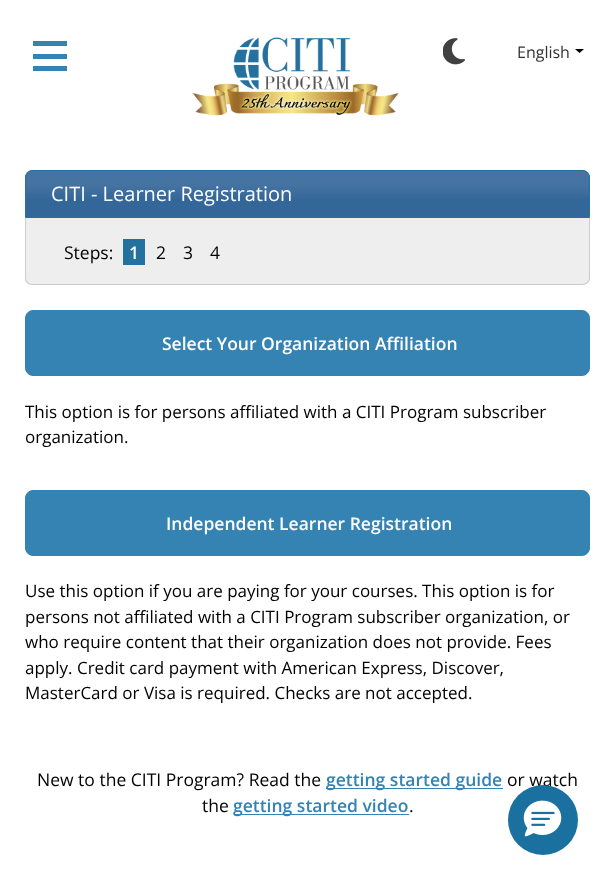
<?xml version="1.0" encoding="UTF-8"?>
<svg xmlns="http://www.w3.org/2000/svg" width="615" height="886">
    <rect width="100%" height="100%" fill="#FFFFFF"/>
    <rect x="33" y="41" width="34" height="5" fill="#3483B1"/>
    <rect x="33" y="54" width="34" height="5" fill="#3483B1"/>
    <rect x="33" y="66" width="34" height="5" fill="#3483B1"/>
    <image x="192" y="37" width="207" height="79" href="img_01.png"/>
    <image x="443" y="38" width="22" height="27" href="img_02.png"/>
    <path d="M 579.5 53 L 575 49 H 584 Z" fill="#000000" fill-rule="evenodd"/>
    <text x="517" y="58" font-family="Open Sans" font-size="16" fill="#333333">English</text>
    <image x="25" y="170" width="565" height="47" href="img_03.png"/>
    <path d="M 33 170.5 H 582 C 586 170.5 589.5 174 589.5 178 V 217.5 H 25.5 V 178 C 25.5 174 29 170.5 33 170.5 Z" fill="none" stroke="#24719F"/>
    <text x="51" y="201" font-family="Open Sans" font-size="20" fill="#FFFFFF">CITI - Learner Registration</text>
    <path d="M 25 218 H 590 V 277 C 590 281.5 586.5 285 582 285 H 33 C 28.5 285 25 281.5 25 277 Z" fill="#EEEEEE"/>
    <path d="M 25 218 H 590 V 278 C 590 282 587 285 582 285 H 32 C 28 285 25 282 25 278 Z M 26 218 H 589 V 278 C 589 281 586 284 582 284 H 32 C 29 284 26 281 26 278 Z" fill="#CCCCCC" fill-rule="evenodd"/>
    <text x="64" y="259" font-family="Open Sans" font-size="17.5" fill="#000000">Steps:</text>
    <rect x="123" y="239" width="22" height="26" fill="#24719F"/>
    <text x="129" y="259" font-family="Open Sans" font-size="17.5" font-weight="600" fill="#FFFFFF">1</text>
    <text x="156" y="259" font-family="Open Sans" font-size="17.5" fill="#000000">2</text>
    <text x="183" y="259" font-family="Open Sans" font-size="17.5" fill="#000000">3</text>
    <text x="210" y="259" font-family="Open Sans" font-size="17.5" fill="#000000">4</text>
    <rect x="25.5" y="310.5" width="564" height="65" rx="7.5" fill="#3483B2" stroke="#3483B2"/>
    <text x="162" y="350" font-family="Open Sans" font-size="17.5" font-weight="600" fill="#FFFFFF">Select Your Organization Affiliation</text>
    <text font-family="Open Sans" font-size="17" fill="#000000">
        <tspan x="25" y="418">This option is for persons affiliated with a CITI Program subscriber</tspan>
        <tspan x="25" y="443">organization.</tspan>
    </text>
    <rect x="25.5" y="490.5" width="564" height="65" rx="7.5" fill="#3483B2" stroke="#3483B2"/>
    <text x="166" y="530" font-family="Open Sans" font-size="17.5" font-weight="600" fill="#FFFFFF">Independent Learner Registration</text>
    <text font-family="Open Sans" font-size="17" fill="#000000">
        <tspan x="25" y="597">Use this option if you are paying for your courses. This option is for</tspan>
        <tspan x="25" y="623">persons not affiliated with a CITI Program subscriber organization, or</tspan>
        <tspan x="25" y="648">who require content that their organization does not provide. Fees</tspan>
        <tspan x="25" y="674">apply. Credit card payment with American Express, Discover,</tspan>
        <tspan x="25" y="699">MasterCard or Visa is required. Checks are not accepted.</tspan>
    </text>
    <text x="37" y="786" font-family="Open Sans" font-size="17.5" fill="#000000">New to the CITI Program? Read the</text>
    <rect x="326" y="788" width="177" height="1" fill="#3483B2"/>
    <text x="326" y="786" font-family="Open Sans" font-size="17.5" font-weight="600" fill="#3483B2">getting started guide</text>
    <text x="507" y="786" font-family="Open Sans" font-size="17.5" fill="#000000">or watch</text>
    <text x="202" y="812" font-family="Open Sans" font-size="17.5" fill="#000000">the</text>
    <rect x="234" y="814" width="175" height="1" fill="#3483B2"/>
    <text x="233" y="812" font-family="Open Sans" font-size="17.5" font-weight="600" fill="#3483B2">getting started video</text>
    <text x="409" y="812" font-family="Open Sans" font-size="17.5" fill="#000000">.</text>
    <circle cx="543" cy="820" r="35" fill="#1A719F"/>
    <image x="523" y="800" width="39" height="37" href="img_04.png"/>
</svg>
